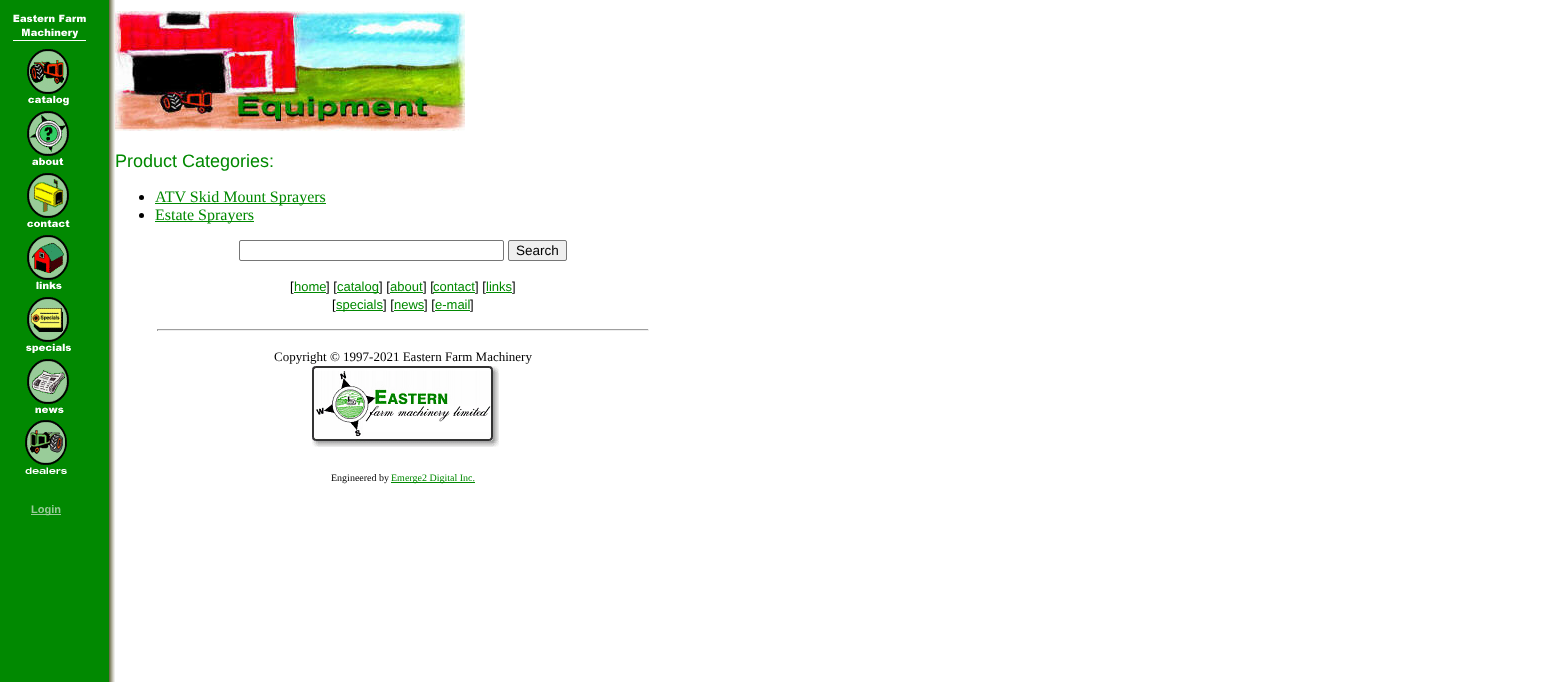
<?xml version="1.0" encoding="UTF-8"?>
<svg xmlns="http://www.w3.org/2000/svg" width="1554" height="682">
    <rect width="100%" height="100%" fill="#FFFFFF"/>
    <image x="0" y="0" width="115" height="682" href="img_01.png"/>
    <image x="115" y="11" width="350" height="120" href="img_02.png"/>
    <text x="115" y="167" font-family="Liberation Sans" font-size="18" fill="#018901">Product Categories:</text>
    <circle cx="141.5" cy="197.5" r="2.5" fill="#000000"/>
    <rect x="155" y="203" width="171" height="1" fill="#018901"/>
    <text x="155" y="202" font-family="Liberation Serif" font-size="16" fill="#018901">ATV Skid Mount Sprayers</text>
    <circle cx="141.5" cy="215.5" r="2.5" fill="#000000"/>
    <rect x="155" y="221" width="99" height="1" fill="#018901"/>
    <text x="155" y="220" font-family="Liberation Serif" font-size="16" fill="#018901">Estate Sprayers</text>
    <rect x="239.5" y="240.5" width="264" height="20" rx="1.5" fill="none" stroke="#767676"/>
    <rect x="508.5" y="240.5" width="58" height="20" rx="1.5" fill="#EFEFEF" stroke="#767676"/>
    <text x="516" y="255" font-family="Liberation Sans" font-size="13.5" fill="#000000">Search</text>
    <text x="290" y="291" font-family="Liberation Sans" font-size="13" fill="#000000">[</text>
    <rect x="294" y="292" width="32" height="1" fill="#018901"/>
    <text x="294" y="291" font-family="Liberation Sans" font-size="13" fill="#018901">home</text>
    <text x="326" y="291" font-family="Liberation Sans" font-size="13" fill="#000000">] [</text>
    <rect x="337" y="292" width="42" height="1" fill="#018901"/>
    <text x="337" y="291" font-family="Liberation Sans" font-size="13" fill="#018901">catalog</text>
    <text x="379" y="291" font-family="Liberation Sans" font-size="13" fill="#000000">] [</text>
    <rect x="390" y="292" width="33" height="1" fill="#018901"/>
    <text x="390" y="291" font-family="Liberation Sans" font-size="13" fill="#018901">about</text>
    <text x="423" y="291" font-family="Liberation Sans" font-size="13" fill="#000000">] [</text>
    <rect x="433" y="292" width="42" height="1" fill="#018901"/>
    <text x="433" y="291" font-family="Liberation Sans" font-size="13" fill="#018901">contact</text>
    <text x="475" y="291" font-family="Liberation Sans" font-size="13" fill="#000000">] [</text>
    <rect x="486" y="292" width="26" height="1" fill="#018901"/>
    <text x="486" y="291" font-family="Liberation Sans" font-size="13" fill="#018901">links</text>
    <text x="512" y="291" font-family="Liberation Sans" font-size="13" fill="#000000">]</text>
    <text x="332" y="309" font-family="Liberation Sans" font-size="13" fill="#000000">[</text>
    <rect x="336" y="310" width="47" height="1" fill="#018901"/>
    <text x="336" y="309" font-family="Liberation Sans" font-size="13" fill="#018901">specials</text>
    <text x="383" y="309" font-family="Liberation Sans" font-size="13" fill="#000000">] [</text>
    <text x="394" y="309" font-family="Liberation Sans" font-size="13" fill="#018901">news</text>
    <rect x="394" y="310" width="30" height="1" fill="#018901"/>
    <text x="424" y="309" font-family="Liberation Sans" font-size="13" fill="#000000">] [</text>
    <rect x="435" y="310" width="35" height="1" fill="#018901"/>
    <text x="435" y="309" font-family="Liberation Sans" font-size="13" fill="#018901">e-mail</text>
    <text x="470" y="309" font-family="Liberation Sans" font-size="13" fill="#000000">]</text>
    <rect x="157" y="329" width="492" height="1" fill="#9F9F9F"/>
    <rect x="648" y="329" width="1" height="2" fill="#EEEEEE"/>
    <rect x="157" y="330" width="492" height="1" fill="#EEEEEE"/>
    <rect x="157" y="329" width="1" height="2" fill="#9F9F9F"/>
    <text x="274" y="361" font-family="Liberation Serif" font-size="13" fill="#000000">Copyright © 1997-2021 Eastern Farm Machinery</text>
    <image x="312" y="366" width="187" height="81" href="img_03.png"/>
    <text x="331" y="481" font-family="Liberation Serif" font-size="10" fill="#000000">Engineered by</text>
    <rect x="391" y="482" width="84" height="1" fill="#018901"/>
    <text x="391" y="481" font-family="Liberation Serif" font-size="10" fill="#018901">Emerge2 Digital Inc.</text>
    <image x="13" y="14" width="73" height="27" href="img_04.png"/>
    <image x="27" y="49" width="42" height="57" href="img_05.png"/>
    <image x="27" y="111" width="42" height="54" href="img_06.png"/>
    <image x="27" y="173" width="43" height="54" href="img_07.png"/>
    <image x="27" y="235" width="42" height="54" href="img_08.png"/>
    <image x="26" y="297" width="45" height="56" href="img_09.png"/>
    <image x="27" y="359" width="42" height="54" href="img_10.png"/>
    <image x="25" y="420" width="42" height="54" href="img_11.png"/>
    <rect x="31" y="514" width="30" height="1" fill="#99CC99"/>
    <text x="31" y="513" font-family="Liberation Sans" font-size="11" font-weight="700" fill="#99CC99">Login</text>
</svg>
